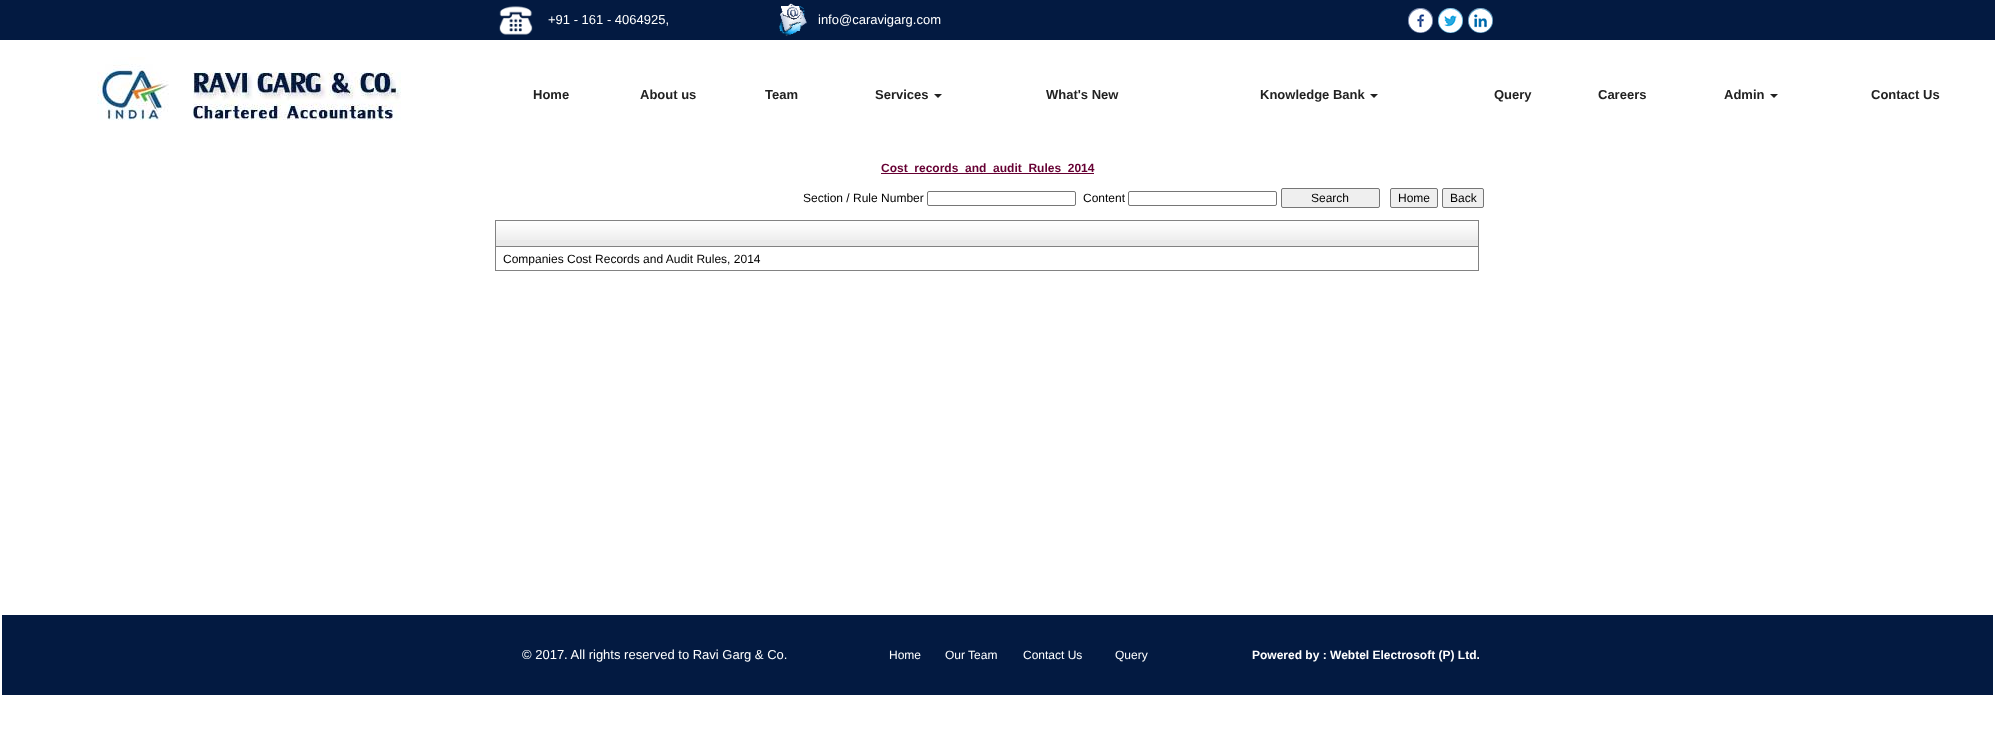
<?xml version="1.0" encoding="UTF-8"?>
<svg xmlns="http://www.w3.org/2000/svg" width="1995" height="732">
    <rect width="100%" height="100%" fill="#FFFFFF"/>
    <rect x="0" y="0" width="1995" height="40" fill="#031A41"/>
    <image x="499" y="6" width="34" height="29" href="img_01.png"/>
    <text x="548" y="24" font-family="Liberation Sans" font-size="13" fill="#FFFFFF">+91 - 161 - 4064925,</text>
    <image x="779" y="3" width="28" height="34" href="img_02.png"/>
    <text x="818" y="24" font-family="Liberation Sans" font-size="13" fill="#FFFFFF">info@caravigarg.com</text>
    <image x="1408" y="8" width="25" height="25" href="img_03.png"/>
    <image x="1438" y="8" width="25" height="25" href="img_04.png"/>
    <image x="1468" y="8" width="25" height="25" href="img_05.png"/>
    <image x="97" y="57" width="304" height="64" href="img_06.png"/>
    <text x="533" y="99" font-family="Liberation Sans" font-size="13" font-weight="700" fill="#222222">Home</text>
    <text x="640" y="99" font-family="Liberation Sans" font-size="13" font-weight="700" fill="#222222">About us</text>
    <text x="765" y="99" font-family="Liberation Sans" font-size="13" font-weight="700" fill="#222222">Team</text>
    <text x="875" y="99" font-family="Liberation Sans" font-size="13" font-weight="700" fill="#222222">Services</text>
    <path d="M 934 94 H 942 L 938 98 Z" fill="#222222"/>
    <text x="1046" y="99" font-family="Liberation Sans" font-size="13" font-weight="700" fill="#222222">What's New</text>
    <text x="1260" y="99" font-family="Liberation Sans" font-size="13" font-weight="700" fill="#222222">Knowledge Bank</text>
    <path d="M 1370 94 H 1378 L 1374 98 Z" fill="#222222"/>
    <text x="1494" y="99" font-family="Liberation Sans" font-size="13" font-weight="700" fill="#222222">Query</text>
    <text x="1598" y="99" font-family="Liberation Sans" font-size="13" font-weight="700" fill="#222222">Careers</text>
    <text x="1724" y="99" font-family="Liberation Sans" font-size="13" font-weight="700" fill="#222222">Admin</text>
    <path d="M 1770 94 H 1778 L 1774 98 Z" fill="#222222"/>
    <text x="1871" y="99" font-family="Liberation Sans" font-size="13" font-weight="700" fill="#222222">Contact Us</text>
    <rect x="881" y="173" width="213" height="1" fill="#660033"/>
    <text x="881" y="172" font-family="Liberation Sans" font-size="12" font-weight="700" fill="#660033">Cost_records_and_audit_Rules_2014</text>
    <text x="803" y="202" font-family="Liberation Sans" font-size="12" fill="#000000">Section / Rule Number</text>
    <rect x="927.5" y="191.5" width="148" height="14" rx="1.5" fill="none" stroke="#767676"/>
    <text x="1083" y="202" font-family="Liberation Sans" font-size="12" fill="#000000">Content</text>
    <rect x="1128.5" y="191.5" width="148" height="14" rx="1.5" fill="none" stroke="#767676"/>
    <rect x="1281.5" y="188.5" width="98" height="19" rx="1.5" fill="#EFEFEF" stroke="#767676"/>
    <text x="1311" y="202" font-family="Liberation Sans" font-size="12" fill="#000000">Search</text>
    <rect x="1390.5" y="188.5" width="47" height="19" rx="1.5" fill="#EFEFEF" stroke="#767676"/>
    <text x="1398" y="202" font-family="Liberation Sans" font-size="12" fill="#000000">Home</text>
    <rect x="1442.5" y="188.5" width="41" height="19" rx="1.5" fill="#EFEFEF" stroke="#767676"/>
    <text x="1450" y="202" font-family="Liberation Sans" font-size="12" fill="#000000">Back</text>
    <rect x="495.5" y="220.5" width="983" height="50" fill="none" stroke="#828282"/>
    <rect x="496" y="240" width="982" height="6" fill="#EAEAEA"/>
    <image x="496" y="221" width="982" height="19" href="img_07.png"/>
    <rect x="496" y="246" width="982" height="1" fill="#828282"/>
    <text x="503" y="263" font-family="Liberation Sans" font-size="12" fill="#000000">Companies Cost Records and Audit Rules, 2014</text>
    <rect x="2" y="615" width="1991" height="80" fill="#031A41"/>
    <text x="522" y="659" font-family="Liberation Sans" font-size="13" fill="#FFFFFF">© 2017. All rights reserved to Ravi Garg &amp; Co.</text>
    <text x="889" y="659" font-family="Liberation Sans" font-size="12" fill="#FFFFFF">Home</text>
    <text x="945" y="659" font-family="Liberation Sans" font-size="12" fill="#FFFFFF">Our Team</text>
    <text x="1023" y="659" font-family="Liberation Sans" font-size="12" fill="#FFFFFF">Contact Us</text>
    <text x="1115" y="659" font-family="Liberation Sans" font-size="12" fill="#FFFFFF">Query</text>
    <text x="1252" y="659" font-family="Liberation Sans" font-size="12" font-weight="700" fill="#FFFFFF">Powered by : Webtel Electrosoft (P) Ltd.</text>
</svg>
